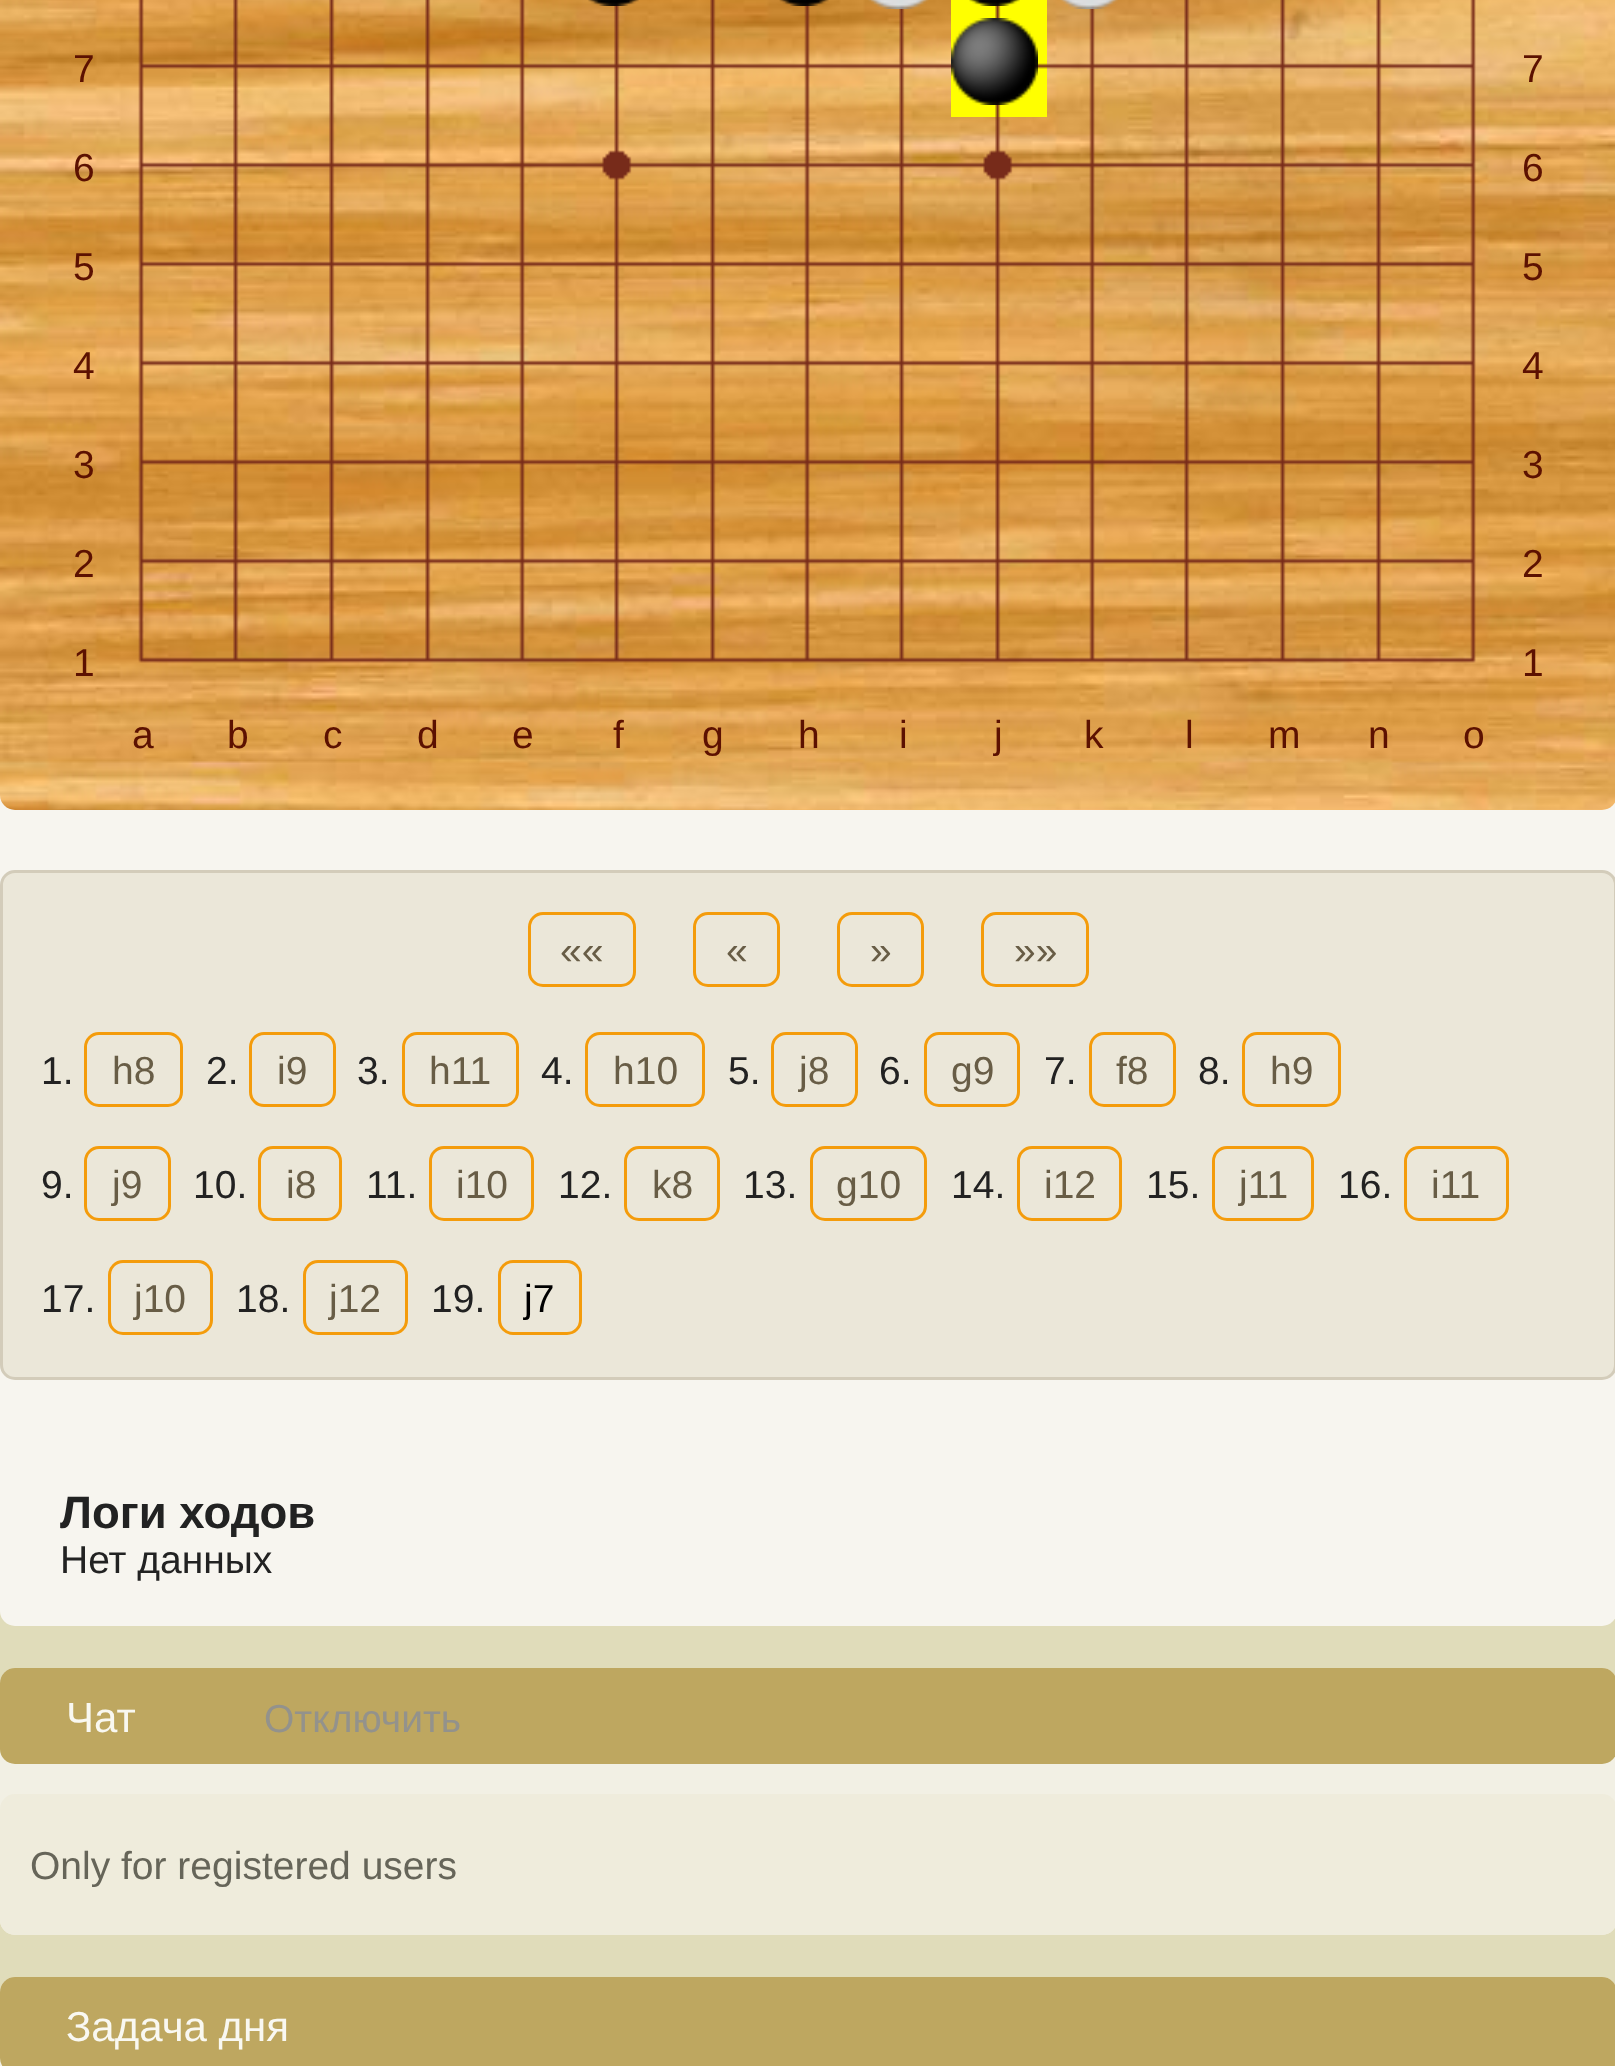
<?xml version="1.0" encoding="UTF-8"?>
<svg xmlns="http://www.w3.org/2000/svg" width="1615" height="2066">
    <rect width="100%" height="100%" fill="#E0DCBA"/>
    <rect x="0" y="-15" width="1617" height="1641" rx="15" fill="#F7F5EF"/>
    <image x="0" y="0" width="1615" height="810" href="img_01.png"/>
    <image x="138" y="0" width="6" height="18" href="img_02.png"/>
    <image x="233" y="0" width="6" height="18" href="img_03.png"/>
    <image x="329" y="0" width="6" height="18" href="img_04.png"/>
    <image x="425" y="0" width="6" height="18" href="img_05.png"/>
    <image x="519" y="0" width="6" height="18" href="img_06.png"/>
    <image x="614" y="2" width="6" height="16" href="img_07.png"/>
    <image x="588" y="0" width="51" height="6" href="img_08.png"/>
    <image x="710" y="0" width="6" height="18" href="img_09.png"/>
    <image x="804" y="2" width="6" height="16" href="img_10.png"/>
    <image x="779" y="0" width="50" height="6" href="img_11.png"/>
    <image x="899" y="5" width="6" height="13" href="img_12.png"/>
    <image x="868" y="0" width="61" height="9" href="img_13.png"/>
    <rect x="951" y="0" width="96" height="117" fill="#FFFF00"/>
    <image x="995" y="2" width="6" height="16" href="img_14.png"/>
    <image x="969" y="0" width="51" height="6" href="img_15.png"/>
    <image x="1089" y="5" width="6" height="13" href="img_16.png"/>
    <image x="1060" y="0" width="58" height="9" href="img_17.png"/>
    <image x="1184" y="0" width="6" height="18" href="img_18.png"/>
    <image x="1280" y="0" width="6" height="18" href="img_19.png"/>
    <image x="1376" y="0" width="6" height="18" href="img_20.png"/>
    <image x="1470" y="0" width="6" height="18" href="img_21.png"/>
    <text x="73" y="82" font-family="Liberation Sans" font-size="39" fill="#5C1101">7</text>
    <image x="138" y="18" width="51" height="99" href="img_22.png"/>
    <image x="189" y="18" width="96" height="99" href="img_23.png"/>
    <image x="285" y="18" width="96" height="99" href="img_24.png"/>
    <image x="381" y="18" width="96" height="99" href="img_25.png"/>
    <image x="477" y="18" width="93" height="99" href="img_26.png"/>
    <image x="570" y="18" width="96" height="99" href="img_27.png"/>
    <image x="666" y="18" width="96" height="99" href="img_28.png"/>
    <image x="762" y="18" width="93" height="99" href="img_29.png"/>
    <image x="855" y="18" width="96" height="99" href="img_30.png"/>
    <image x="951" y="18" width="96" height="99" href="img_31.png"/>
    <image x="951" y="18" width="87" height="87" href="img_32.png"/>
    <image x="1047" y="18" width="93" height="99" href="img_33.png"/>
    <image x="1140" y="18" width="96" height="99" href="img_34.png"/>
    <image x="1236" y="18" width="96" height="99" href="img_35.png"/>
    <image x="1332" y="18" width="96" height="99" href="img_36.png"/>
    <image x="1428" y="18" width="48" height="99" href="img_37.png"/>
    <text x="1522" y="82" font-family="Liberation Sans" font-size="39" fill="#5C1101">7</text>
    <text x="73" y="181" font-family="Liberation Sans" font-size="39" fill="#5C1101">6</text>
    <image x="138" y="117" width="51" height="99" href="img_38.png"/>
    <image x="189" y="117" width="96" height="99" href="img_39.png"/>
    <image x="285" y="117" width="96" height="99" href="img_40.png"/>
    <image x="381" y="117" width="96" height="99" href="img_41.png"/>
    <image x="477" y="117" width="93" height="99" href="img_42.png"/>
    <image x="570" y="117" width="96" height="99" href="img_43.png"/>
    <image x="666" y="117" width="96" height="99" href="img_44.png"/>
    <image x="762" y="117" width="93" height="99" href="img_45.png"/>
    <image x="855" y="117" width="96" height="99" href="img_46.png"/>
    <image x="951" y="117" width="96" height="99" href="img_47.png"/>
    <image x="1047" y="117" width="93" height="99" href="img_48.png"/>
    <image x="1140" y="117" width="96" height="99" href="img_49.png"/>
    <image x="1236" y="117" width="96" height="99" href="img_50.png"/>
    <image x="1332" y="117" width="96" height="99" href="img_51.png"/>
    <image x="1428" y="117" width="48" height="99" href="img_52.png"/>
    <text x="1522" y="181" font-family="Liberation Sans" font-size="39" fill="#5C1101">6</text>
    <text x="73" y="280" font-family="Liberation Sans" font-size="39" fill="#5C1101">5</text>
    <image x="138" y="216" width="51" height="99" href="img_53.png"/>
    <image x="189" y="216" width="96" height="99" href="img_54.png"/>
    <image x="285" y="216" width="96" height="99" href="img_55.png"/>
    <image x="381" y="216" width="96" height="99" href="img_56.png"/>
    <image x="477" y="216" width="93" height="99" href="img_57.png"/>
    <image x="570" y="216" width="96" height="99" href="img_58.png"/>
    <image x="666" y="216" width="96" height="99" href="img_59.png"/>
    <image x="762" y="216" width="93" height="99" href="img_60.png"/>
    <image x="855" y="216" width="96" height="99" href="img_61.png"/>
    <image x="951" y="216" width="96" height="99" href="img_62.png"/>
    <image x="1047" y="216" width="93" height="99" href="img_63.png"/>
    <image x="1140" y="216" width="96" height="99" href="img_64.png"/>
    <image x="1236" y="216" width="96" height="99" href="img_65.png"/>
    <image x="1332" y="216" width="96" height="99" href="img_66.png"/>
    <image x="1428" y="216" width="48" height="99" href="img_67.png"/>
    <text x="1522" y="280" font-family="Liberation Sans" font-size="39" fill="#5C1101">5</text>
    <text x="73" y="379" font-family="Liberation Sans" font-size="39" fill="#5C1101">4</text>
    <image x="138" y="315" width="51" height="99" href="img_68.png"/>
    <image x="189" y="315" width="96" height="99" href="img_69.png"/>
    <image x="285" y="315" width="96" height="99" href="img_70.png"/>
    <image x="381" y="315" width="96" height="99" href="img_71.png"/>
    <image x="477" y="315" width="93" height="99" href="img_72.png"/>
    <image x="570" y="315" width="96" height="99" href="img_73.png"/>
    <image x="666" y="315" width="96" height="99" href="img_74.png"/>
    <image x="762" y="315" width="93" height="99" href="img_75.png"/>
    <image x="855" y="315" width="96" height="99" href="img_76.png"/>
    <image x="951" y="315" width="96" height="99" href="img_77.png"/>
    <image x="1047" y="315" width="93" height="99" href="img_78.png"/>
    <image x="1140" y="315" width="96" height="99" href="img_79.png"/>
    <image x="1236" y="315" width="96" height="99" href="img_80.png"/>
    <image x="1332" y="315" width="96" height="99" href="img_81.png"/>
    <image x="1428" y="315" width="48" height="99" href="img_82.png"/>
    <text x="1522" y="379" font-family="Liberation Sans" font-size="39" fill="#5C1101">4</text>
    <text x="73" y="478" font-family="Liberation Sans" font-size="39" fill="#5C1101">3</text>
    <image x="138" y="414" width="51" height="99" href="img_83.png"/>
    <image x="189" y="414" width="96" height="99" href="img_84.png"/>
    <image x="285" y="414" width="96" height="99" href="img_85.png"/>
    <image x="381" y="414" width="96" height="99" href="img_86.png"/>
    <image x="477" y="414" width="93" height="99" href="img_87.png"/>
    <image x="570" y="414" width="96" height="99" href="img_88.png"/>
    <image x="666" y="414" width="96" height="99" href="img_89.png"/>
    <image x="762" y="414" width="93" height="99" href="img_90.png"/>
    <image x="855" y="414" width="96" height="99" href="img_91.png"/>
    <image x="951" y="414" width="96" height="99" href="img_92.png"/>
    <image x="1047" y="414" width="93" height="99" href="img_93.png"/>
    <image x="1140" y="414" width="96" height="99" href="img_94.png"/>
    <image x="1236" y="414" width="96" height="99" href="img_95.png"/>
    <image x="1332" y="414" width="96" height="99" href="img_96.png"/>
    <image x="1428" y="414" width="48" height="99" href="img_97.png"/>
    <text x="1522" y="478" font-family="Liberation Sans" font-size="39" fill="#5C1101">3</text>
    <text x="73" y="577" font-family="Liberation Sans" font-size="39" fill="#5C1101">2</text>
    <image x="138" y="513" width="51" height="99" href="img_98.png"/>
    <image x="189" y="513" width="96" height="99" href="img_99.png"/>
    <image x="285" y="513" width="96" height="99" href="img_100.png"/>
    <image x="381" y="513" width="96" height="99" href="img_101.png"/>
    <image x="477" y="513" width="93" height="99" href="img_102.png"/>
    <image x="570" y="513" width="96" height="99" href="img_103.png"/>
    <image x="666" y="513" width="96" height="99" href="img_104.png"/>
    <image x="762" y="513" width="93" height="99" href="img_105.png"/>
    <image x="855" y="513" width="96" height="99" href="img_106.png"/>
    <image x="951" y="513" width="96" height="99" href="img_107.png"/>
    <image x="1047" y="513" width="93" height="99" href="img_108.png"/>
    <image x="1140" y="513" width="96" height="99" href="img_109.png"/>
    <image x="1236" y="513" width="96" height="99" href="img_110.png"/>
    <image x="1332" y="513" width="96" height="99" href="img_111.png"/>
    <image x="1428" y="513" width="48" height="99" href="img_112.png"/>
    <text x="1522" y="577" font-family="Liberation Sans" font-size="39" fill="#5C1101">2</text>
    <text x="73" y="676" font-family="Liberation Sans" font-size="39" fill="#5C1101">1</text>
    <image x="138" y="612" width="51" height="51" href="img_113.png"/>
    <image x="189" y="612" width="96" height="51" href="img_114.png"/>
    <image x="285" y="612" width="96" height="51" href="img_115.png"/>
    <image x="381" y="612" width="96" height="51" href="img_116.png"/>
    <image x="477" y="612" width="93" height="51" href="img_117.png"/>
    <image x="570" y="612" width="96" height="51" href="img_118.png"/>
    <image x="666" y="612" width="96" height="51" href="img_119.png"/>
    <image x="762" y="612" width="93" height="51" href="img_120.png"/>
    <image x="855" y="612" width="96" height="51" href="img_121.png"/>
    <image x="951" y="612" width="96" height="51" href="img_122.png"/>
    <image x="1047" y="612" width="93" height="51" href="img_123.png"/>
    <image x="1140" y="612" width="96" height="51" href="img_124.png"/>
    <image x="1236" y="612" width="96" height="51" href="img_125.png"/>
    <image x="1332" y="612" width="96" height="51" href="img_126.png"/>
    <image x="1428" y="612" width="48" height="51" href="img_127.png"/>
    <text x="1522" y="676" font-family="Liberation Sans" font-size="39" fill="#5C1101">1</text>
    <text x="132" y="748" font-family="Liberation Sans" font-size="39" fill="#5C1101">a</text>
    <text x="227" y="748" font-family="Liberation Sans" font-size="39" fill="#5C1101">b</text>
    <text x="323" y="748" font-family="Liberation Sans" font-size="39" fill="#5C1101">c</text>
    <text x="417" y="748" font-family="Liberation Sans" font-size="39" fill="#5C1101">d</text>
    <text x="512" y="748" font-family="Liberation Sans" font-size="39" fill="#5C1101">e</text>
    <text x="613" y="748" font-family="Liberation Sans" font-size="39" fill="#5C1101">f</text>
    <text x="702" y="748" font-family="Liberation Sans" font-size="39" fill="#5C1101">g</text>
    <text x="798" y="748" font-family="Liberation Sans" font-size="39" fill="#5C1101">h</text>
    <text x="899" y="748" font-family="Liberation Sans" font-size="39" fill="#5C1101">i</text>
    <text x="994" y="748" font-family="Liberation Sans" font-size="39" fill="#5C1101">j</text>
    <text x="1084" y="748" font-family="Liberation Sans" font-size="39" fill="#5C1101">k</text>
    <text x="1185" y="748" font-family="Liberation Sans" font-size="39" fill="#5C1101">l</text>
    <text x="1268" y="748" font-family="Liberation Sans" font-size="39" fill="#5C1101">m</text>
    <text x="1368" y="748" font-family="Liberation Sans" font-size="39" fill="#5C1101">n</text>
    <text x="1463" y="748" font-family="Liberation Sans" font-size="39" fill="#5C1101">o</text>
    <rect x="1.5" y="871.5" width="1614" height="507" rx="13.5" fill="#EBE7D9" stroke="#D3CCBA" stroke-width="3"/>
    <rect x="529.5" y="913.5" width="105" height="72" rx="13.5" fill="none" stroke="#F49C0C" stroke-width="3"/>
    <text x="560" y="964" font-family="Liberation Sans" font-size="39" fill="#685D46">««</text>
    <rect x="694.5" y="913.5" width="84" height="72" rx="13.5" fill="none" stroke="#F49C0C" stroke-width="3"/>
    <text x="726" y="964" font-family="Liberation Sans" font-size="39" fill="#685D46">«</text>
    <rect x="838.5" y="913.5" width="84" height="72" rx="13.5" fill="none" stroke="#F49C0C" stroke-width="3"/>
    <text x="870" y="964" font-family="Liberation Sans" font-size="39" fill="#685D46">»</text>
    <rect x="982.5" y="913.5" width="105" height="72" rx="13.5" fill="none" stroke="#F49C0C" stroke-width="3"/>
    <text x="1014" y="964" font-family="Liberation Sans" font-size="39" fill="#685D46">»»</text>
    <text x="41" y="1084" font-family="Liberation Sans" font-size="39" fill="#222222">1.</text>
    <rect x="85.5" y="1033.5" width="96" height="72" rx="13.5" fill="none" stroke="#F49C0C" stroke-width="3"/>
    <text x="112" y="1084" font-family="Liberation Sans" font-size="39" fill="#685D46">h8</text>
    <text x="206" y="1084" font-family="Liberation Sans" font-size="39" fill="#222222">2.</text>
    <rect x="250.5" y="1033.5" width="84" height="72" rx="13.5" fill="none" stroke="#F49C0C" stroke-width="3"/>
    <text x="277" y="1084" font-family="Liberation Sans" font-size="39" fill="#685D46">i9</text>
    <text x="357" y="1084" font-family="Liberation Sans" font-size="39" fill="#222222">3.</text>
    <rect x="403.5" y="1033.5" width="114" height="72" rx="13.5" fill="none" stroke="#F49C0C" stroke-width="3"/>
    <text x="429" y="1084" font-family="Liberation Sans" font-size="39" fill="#685D46">h11</text>
    <text x="541" y="1084" font-family="Liberation Sans" font-size="39" fill="#222222">4.</text>
    <rect x="586.5" y="1033.5" width="117" height="72" rx="13.5" fill="none" stroke="#F49C0C" stroke-width="3"/>
    <text x="613" y="1084" font-family="Liberation Sans" font-size="39" fill="#685D46">h10</text>
    <text x="728" y="1084" font-family="Liberation Sans" font-size="39" fill="#222222">5.</text>
    <rect x="772.5" y="1033.5" width="84" height="72" rx="13.5" fill="none" stroke="#F49C0C" stroke-width="3"/>
    <text x="799" y="1084" font-family="Liberation Sans" font-size="39" fill="#685D46">j8</text>
    <text x="879" y="1084" font-family="Liberation Sans" font-size="39" fill="#222222">6.</text>
    <rect x="925.5" y="1033.5" width="93" height="72" rx="13.5" fill="none" stroke="#F49C0C" stroke-width="3"/>
    <text x="951" y="1084" font-family="Liberation Sans" font-size="39" fill="#685D46">g9</text>
    <text x="1044" y="1084" font-family="Liberation Sans" font-size="39" fill="#222222">7.</text>
    <rect x="1090.5" y="1033.5" width="84" height="72" rx="13.5" fill="none" stroke="#F49C0C" stroke-width="3"/>
    <text x="1116" y="1084" font-family="Liberation Sans" font-size="39" fill="#685D46">f8</text>
    <text x="1198" y="1084" font-family="Liberation Sans" font-size="39" fill="#222222">8.</text>
    <rect x="1243.5" y="1033.5" width="96" height="72" rx="13.5" fill="none" stroke="#F49C0C" stroke-width="3"/>
    <text x="1270" y="1084" font-family="Liberation Sans" font-size="39" fill="#685D46">h9</text>
    <text x="41" y="1198" font-family="Liberation Sans" font-size="39" fill="#222222">9.</text>
    <rect x="85.5" y="1147.5" width="84" height="72" rx="13.5" fill="none" stroke="#F49C0C" stroke-width="3"/>
    <text x="112" y="1198" font-family="Liberation Sans" font-size="39" fill="#685D46">j9</text>
    <text x="193" y="1198" font-family="Liberation Sans" font-size="39" fill="#222222">10.</text>
    <rect x="259.5" y="1147.5" width="81" height="72" rx="13.5" fill="none" stroke="#F49C0C" stroke-width="3"/>
    <text x="286" y="1198" font-family="Liberation Sans" font-size="39" fill="#685D46">i8</text>
    <text x="366" y="1198" font-family="Liberation Sans" font-size="39" fill="#222222">11.</text>
    <rect x="430.5" y="1147.5" width="102" height="72" rx="13.5" fill="none" stroke="#F49C0C" stroke-width="3"/>
    <text x="456" y="1198" font-family="Liberation Sans" font-size="39" fill="#685D46">i10</text>
    <text x="558" y="1198" font-family="Liberation Sans" font-size="39" fill="#222222">12.</text>
    <rect x="625.5" y="1147.5" width="93" height="72" rx="13.5" fill="none" stroke="#F49C0C" stroke-width="3"/>
    <text x="652" y="1198" font-family="Liberation Sans" font-size="39" fill="#685D46">k8</text>
    <text x="743" y="1198" font-family="Liberation Sans" font-size="39" fill="#222222">13.</text>
    <rect x="811.5" y="1147.5" width="114" height="72" rx="13.5" fill="none" stroke="#F49C0C" stroke-width="3"/>
    <text x="836" y="1198" font-family="Liberation Sans" font-size="39" fill="#685D46">g10</text>
    <text x="951" y="1198" font-family="Liberation Sans" font-size="39" fill="#222222">14.</text>
    <rect x="1018.5" y="1147.5" width="102" height="72" rx="13.5" fill="none" stroke="#F49C0C" stroke-width="3"/>
    <text x="1044" y="1198" font-family="Liberation Sans" font-size="39" fill="#685D46">i12</text>
    <text x="1146" y="1198" font-family="Liberation Sans" font-size="39" fill="#222222">15.</text>
    <rect x="1213.5" y="1147.5" width="99" height="72" rx="13.5" fill="none" stroke="#F49C0C" stroke-width="3"/>
    <text x="1239" y="1198" font-family="Liberation Sans" font-size="39" fill="#685D46">j11</text>
    <text x="1338" y="1198" font-family="Liberation Sans" font-size="39" fill="#222222">16.</text>
    <rect x="1405.5" y="1147.5" width="102" height="72" rx="13.5" fill="none" stroke="#F49C0C" stroke-width="3"/>
    <text x="1431" y="1198" font-family="Liberation Sans" font-size="39" fill="#685D46">i11</text>
    <text x="41" y="1312" font-family="Liberation Sans" font-size="39" fill="#222222">17.</text>
    <rect x="109.5" y="1261.5" width="102" height="72" rx="13.5" fill="none" stroke="#F49C0C" stroke-width="3"/>
    <text x="134" y="1312" font-family="Liberation Sans" font-size="39" fill="#685D46">j10</text>
    <text x="236" y="1312" font-family="Liberation Sans" font-size="39" fill="#222222">18.</text>
    <rect x="304.5" y="1261.5" width="102" height="72" rx="13.5" fill="none" stroke="#F49C0C" stroke-width="3"/>
    <text x="329" y="1312" font-family="Liberation Sans" font-size="39" fill="#685D46">j12</text>
    <text x="431" y="1312" font-family="Liberation Sans" font-size="39" fill="#222222">19.</text>
    <rect x="499.5" y="1261.5" width="81" height="72" rx="13.5" fill="none" stroke="#F49C0C" stroke-width="3"/>
    <text x="524" y="1312" font-family="Liberation Sans" font-size="39" fill="#000000">j7</text>
    <text x="60" y="1528" font-family="Liberation Sans" font-size="45.5" font-weight="700" fill="#222222">Логи ходов</text>
    <text x="60" y="1573" font-family="Liberation Sans" font-size="39" fill="#222222">Нет данных</text>
    <rect x="0" y="1668" width="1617" height="267" rx="15" fill="#F2F0E4"/>
    <rect x="0" y="1668" width="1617" height="96" rx="15" fill="#BEA760"/>
    <text x="66" y="1732" font-family="Liberation Sans" font-size="42" fill="#F9F8F1">Чат</text>
    <text x="264" y="1732" font-family="Liberation Sans" font-size="39" fill="#93928C">Отключить</text>
    <rect x="0" y="1794" width="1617" height="141" rx="15" fill="#EFECDC"/>
    <text x="30" y="1879" font-family="Liberation Sans" font-size="39" fill="#666559">Only for registered users</text>
    <rect x="0" y="1977" width="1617" height="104" rx="15" fill="#F2F0E4"/>
    <rect x="0" y="1977" width="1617" height="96" rx="15" fill="#BEA760"/>
    <text x="66" y="2041" font-family="Liberation Sans" font-size="42" fill="#F9F8F1">Задача дня</text>
</svg>
